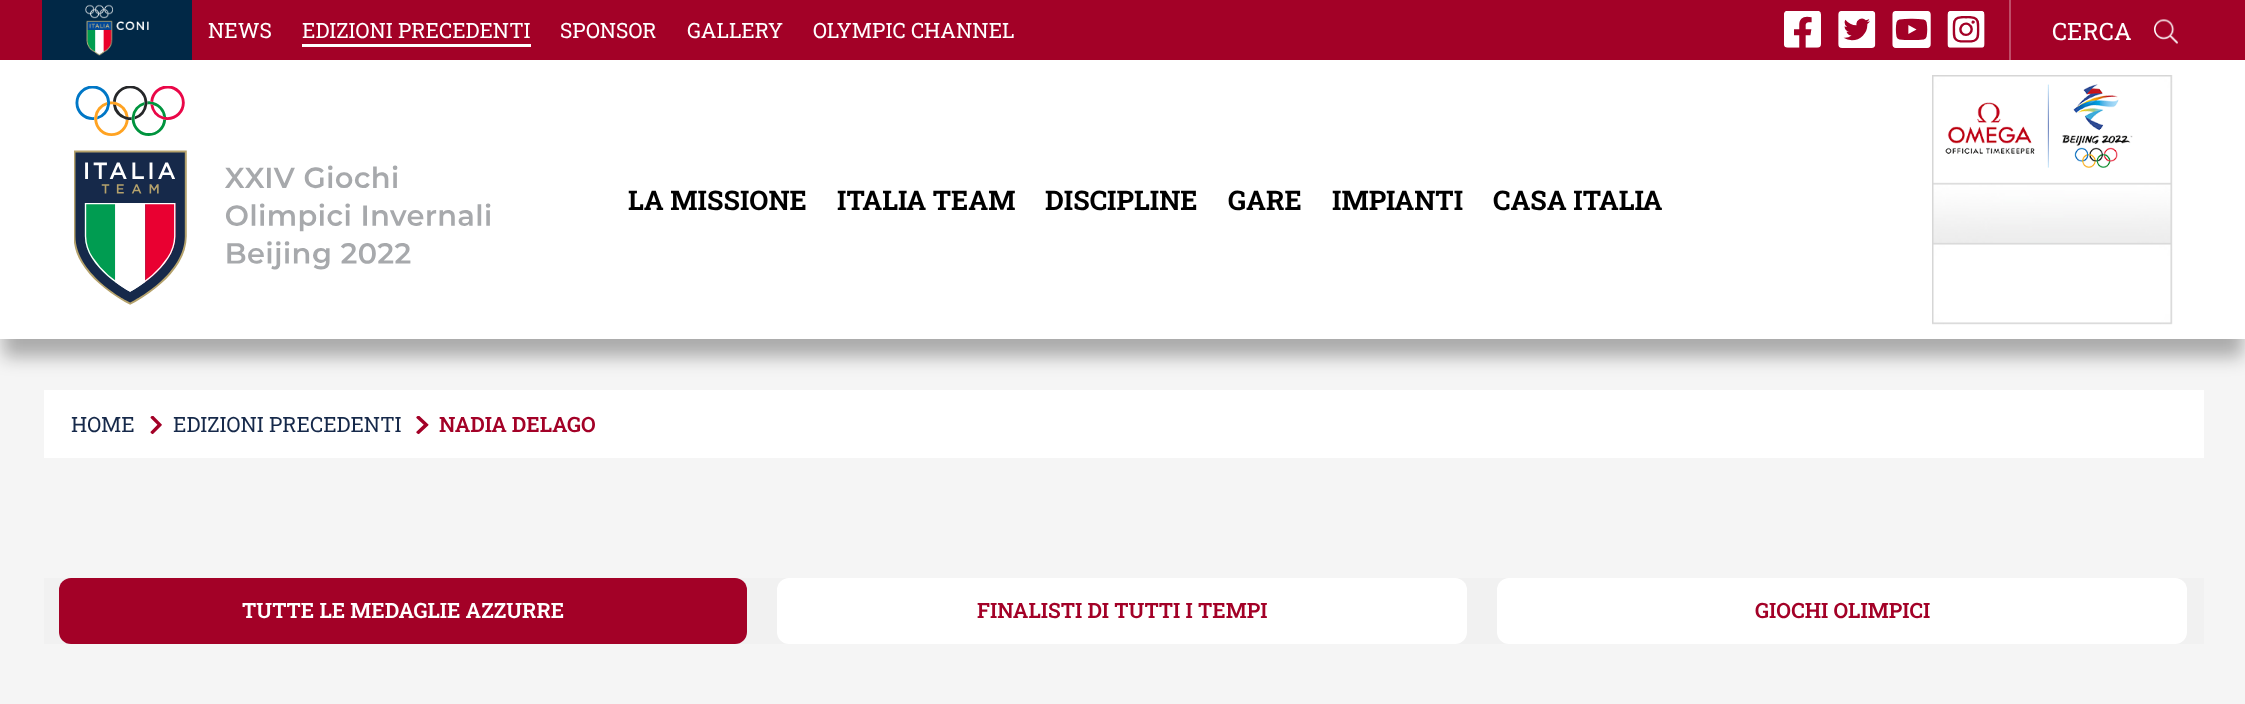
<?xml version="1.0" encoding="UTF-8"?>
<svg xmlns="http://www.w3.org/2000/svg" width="2245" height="704">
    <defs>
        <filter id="blur1" x="-50%" y="-200%" width="200%" height="500%"><feGaussianBlur stdDeviation="9"/></filter>
    </defs>
    <rect width="100%" height="100%" fill="#F5F5F5"/>
    <rect x="0" y="0" width="2245" height="60" fill="#A30127"/>
    <rect x="3" y="84" width="2240" height="273" fill="#000000" fill-opacity="0.3" filter="url(#blur1)"/>
    <rect x="42" y="0" width="150" height="60" fill="#012846"/>
    <image x="85" y="4" width="64" height="52" href="img_01.png"/>
    <text x="208" y="38" font-family="Roboto Slab" font-size="21" fill="#FFFFFF">NEWS</text>
    <text x="302" y="38" font-family="Roboto Slab" font-size="21" fill="#FFFFFF">EDIZIONI PRECEDENTI</text>
    <rect x="302" y="44" width="229" height="3" fill="#FFFFFF"/>
    <text x="560" y="38" font-family="Roboto Slab" font-size="21" fill="#FFFFFF">SPONSOR</text>
    <text x="687" y="38" font-family="Roboto Slab" font-size="21" fill="#FFFFFF">GALLERY</text>
    <text x="813" y="38" font-family="Roboto Slab" font-size="21" fill="#FFFFFF">OLYMPIC CHANNEL</text>
    <image x="1784" y="11" width="37" height="37" href="img_02.png"/>
    <image x="1838" y="11" width="38" height="37" href="img_03.png"/>
    <image x="1892" y="11" width="39" height="37" href="img_04.png"/>
    <image x="1947" y="11" width="38" height="37" href="img_05.png"/>
    <rect x="2009" y="0" width="2" height="60" fill="#BF4D68"/>
    <text x="2052" y="40" font-family="Roboto Slab" font-size="24" fill="#FFFFFF">CERCA</text>
    <image x="2154" y="19" width="24" height="25" href="img_06.png"/>
    <rect x="0" y="60" width="2245" height="279" fill="#FFFFFF"/>
    <image x="74" y="86" width="417" height="219" href="img_07.png"/>
    <text x="628" y="210" font-family="Roboto Slab" font-size="27" font-weight="700" fill="#000000">LA MISSIONE</text>
    <text x="837" y="210" font-family="Roboto Slab" font-size="27" font-weight="700" fill="#000000">ITALIA TEAM</text>
    <text x="1045" y="210" font-family="Roboto Slab" font-size="27" font-weight="700" fill="#000000">DISCIPLINE</text>
    <text x="1228" y="210" font-family="Roboto Slab" font-size="27" font-weight="700" fill="#000000">GARE</text>
    <text x="1332" y="210" font-family="Roboto Slab" font-size="27" font-weight="700" fill="#000000">IMPIANTI</text>
    <text x="1493" y="210" font-family="Roboto Slab" font-size="27" font-weight="700" fill="#000000">CASA ITALIA</text>
    <image x="1932" y="75" width="241" height="250" href="img_08.png"/>
    <image x="1945" y="84" width="188" height="84" href="img_09.png"/>
    <rect x="44" y="390" width="2160" height="68" fill="#FFFFFF"/>
    <text x="71" y="432" font-family="Roboto Slab" font-size="21" fill="#16294A">HOME</text>
    <image x="150" y="416" width="12" height="19" href="img_10.png"/>
    <text x="173" y="432" font-family="Roboto Slab" font-size="21" fill="#16294A">EDIZIONI PRECEDENTI</text>
    <image x="416" y="416" width="13" height="19" href="img_11.png"/>
    <text x="439" y="432" font-family="Roboto Slab" font-size="21" font-weight="600" fill="#A30127">NADIA DELAGO</text>
    <rect x="44" y="578" width="2160" height="66" fill="#F1F1F1"/>
    <rect x="59" y="578" width="688" height="66" rx="12" fill="#A30127"/>
    <text x="242" y="618" font-family="Roboto Slab" font-size="21" font-weight="600" fill="#FFFFFF">TUTTE LE MEDAGLIE AZZURRE</text>
    <rect x="777" y="578" width="690" height="66" rx="12" fill="#FFFFFF"/>
    <text x="977" y="618" font-family="Roboto Slab" font-size="21" font-weight="600" fill="#A30127">FINALISTI DI TUTTI I TEMPI</text>
    <rect x="1497" y="578" width="690" height="66" rx="12" fill="#FFFFFF"/>
    <text x="1755" y="618" font-family="Roboto Slab" font-size="21" font-weight="600" fill="#A30127">GIOCHI OLIMPICI</text>
</svg>
